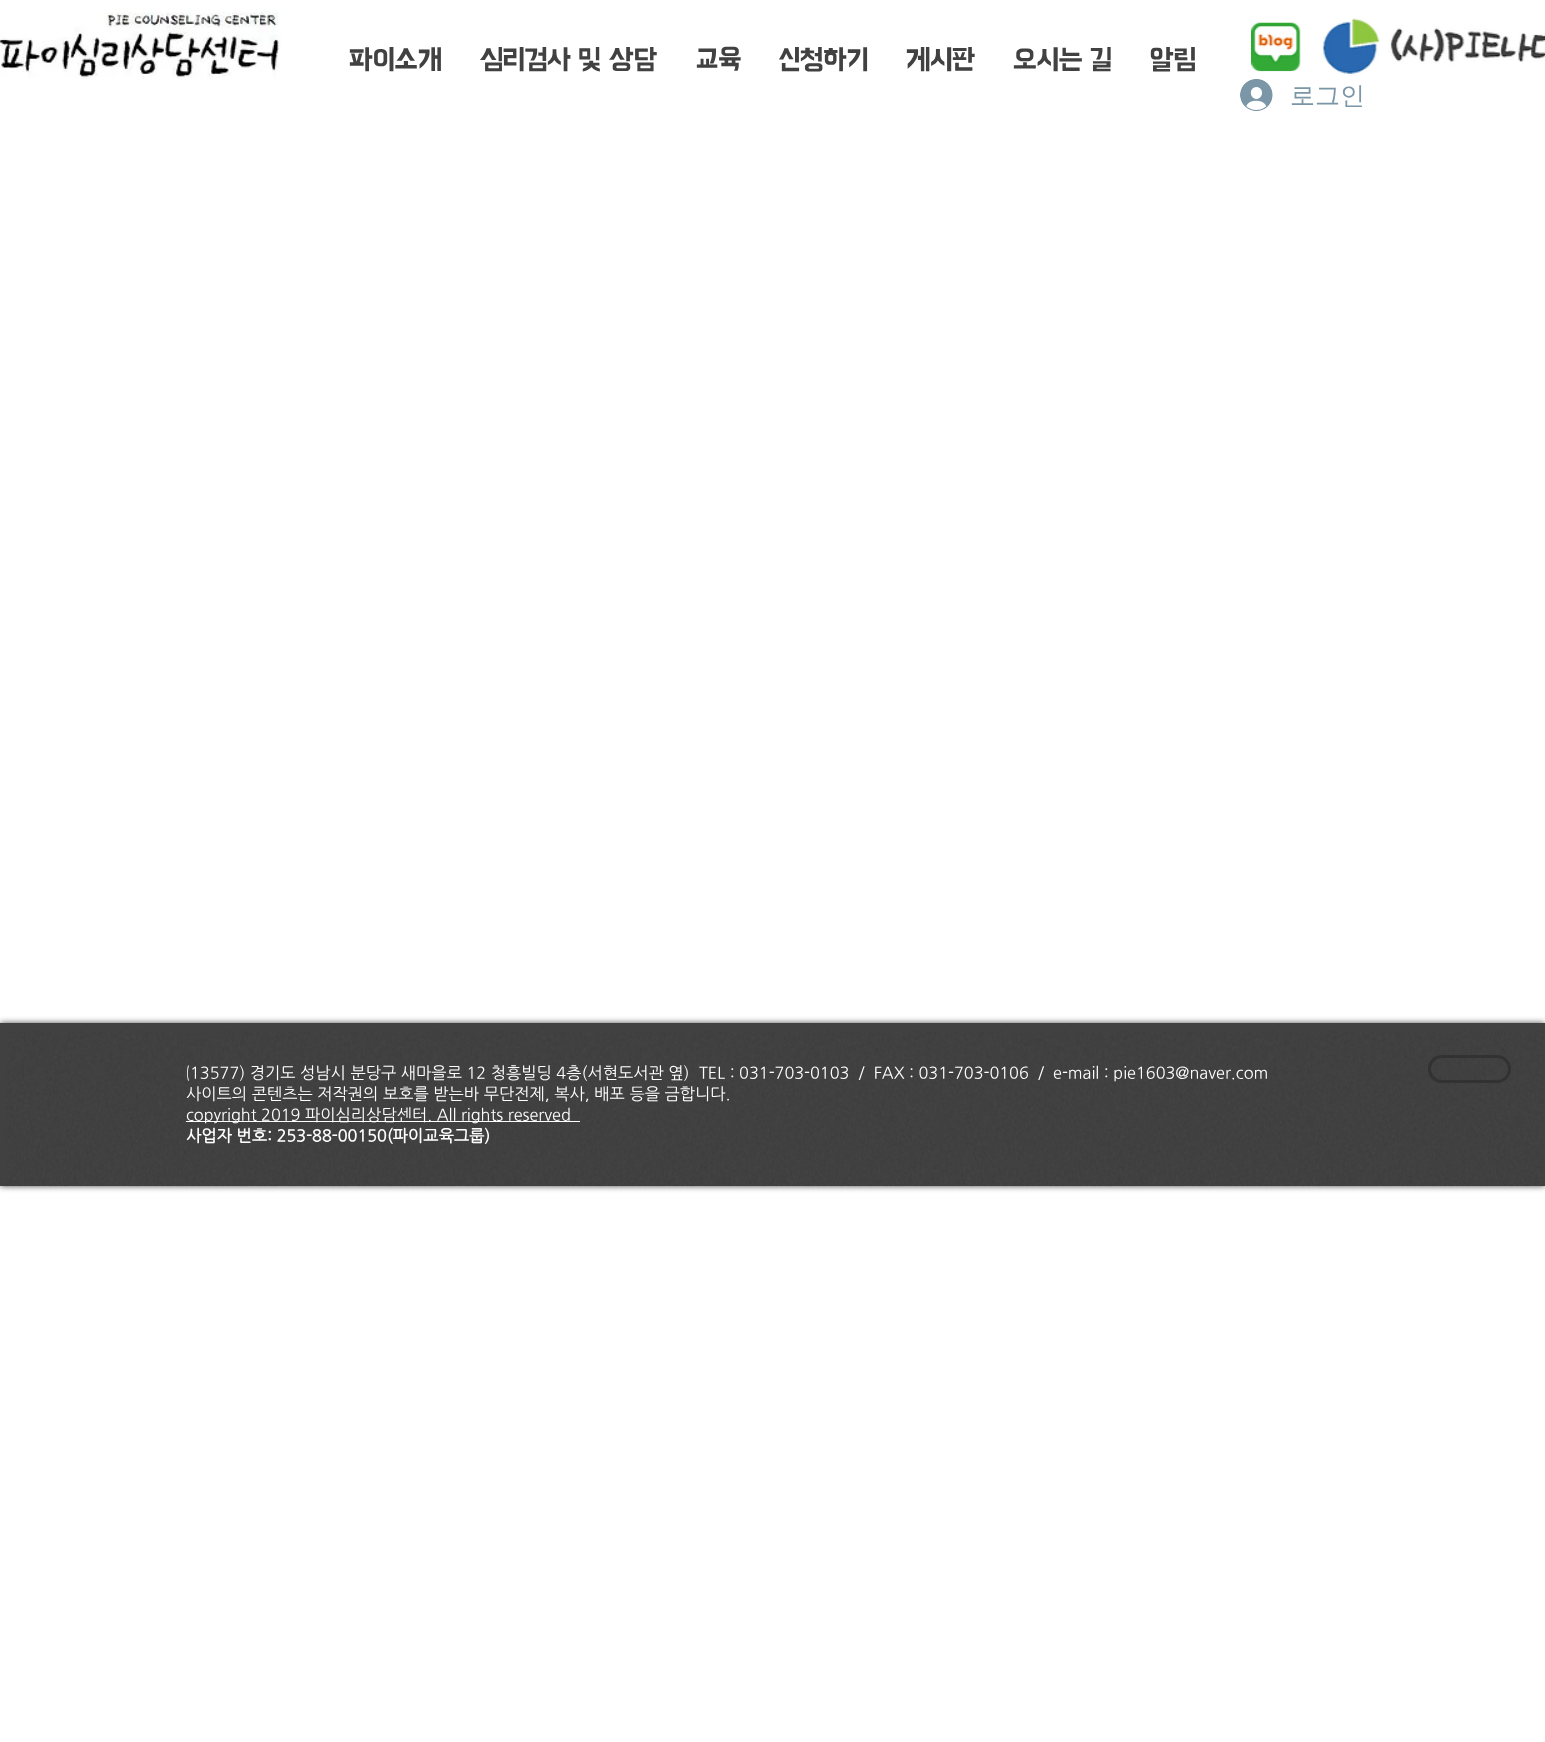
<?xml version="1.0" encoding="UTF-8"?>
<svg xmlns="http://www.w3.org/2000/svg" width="1545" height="1742">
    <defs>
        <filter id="blur1" x="-50%" y="-200%" width="200%" height="500%"><feGaussianBlur stdDeviation="3"/></filter>
    </defs>
    <rect width="100%" height="100%" fill="#FFFFFF"/>
    <image x="0" y="10" width="281" height="69" href="img_01.png"/>
    <text x="349" y="68" font-family="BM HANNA" font-size="28.75" fill="#414141">파이소개</text>
    <text x="479" y="68" font-family="BM HANNA" font-size="28.75" fill="#414141">심리검사 및 상담</text>
    <text x="696" y="68" font-family="BM HANNA" font-size="28.75" fill="#414141">교육</text>
    <text x="778" y="68" font-family="BM HANNA" font-size="28.75" fill="#414141">신청하기</text>
    <text x="906" y="68" font-family="BM HANNA" font-size="28.75" fill="#414141">게시판</text>
    <text x="1013" y="68" font-family="BM HANNA" font-size="28.75" fill="#414141">오시는 길</text>
    <text x="1150" y="68" font-family="BM HANNA" font-size="28.75" fill="#414141">알림</text>
    <image x="1251" y="22" width="50" height="50" href="img_02.png"/>
    <image x="1322" y="18" width="223" height="58" href="img_03.png"/>
    <image x="1240" y="79" width="33" height="32" href="img_04.png"/>
    <text x="1290" y="104" font-family="WenQuanYi Zen Hei" font-size="25" font-weight="500" fill="#7A96A7">로그인</text>
    <rect x="0" y="1023" width="1545" height="163" fill="#000000" fill-opacity="0.7" filter="url(#blur1)"/>
    <rect x="0" y="1023" width="1545" height="163" fill="#414141"/>
    <image x="5" y="1031" width="1539" height="156" href="img_05.png"/>
    <text x="186" y="1078" font-family="futura" font-size="16.25" font-weight="300" fill="#FFFFFF">(</text>
    <text x="190" y="1078" font-family="NanumGothic" font-size="16.25" fill="#FFFFFF">13577) 경기도 성남시 분당구 새마을로 12 청흥빌딩 4층(서현도서관 옆)</text>
    <text x="699" y="1078" font-family="NanumGothic" font-size="16.25" fill="#FFFFFF" xml:space="preserve">TEL : 031-703-0103  /  FAX : 031-703-0106  /  e-mail : pie1603@naver.com</text>
    <text x="186" y="1099" font-family="NanumGothic" font-size="16.25" fill="#FFFFFF">사이트의 콘텐츠는 저작권의 보호를 받는바 무단전제, 복사, 배포 등을 금합니다.</text>
    <rect x="186" y="1121" width="394" height="1" fill="#FFFFFF"/>
    <text x="186" y="1120" font-family="NanumGothic" font-size="16.25" fill="#FFFFFF">copyright 2019 파이심리상담센터. All rights reserved</text>
    <text x="186" y="1141" font-family="NanumGothic" font-size="16.25" font-weight="700" fill="#FFFFFF">사업자 번호: 253-88-00150(파이교육그룹)</text>
    <rect x="1429.5" y="1056.5" width="80" height="25" rx="12.5" fill="none" stroke="#323232" stroke-width="3"/>
</svg>
